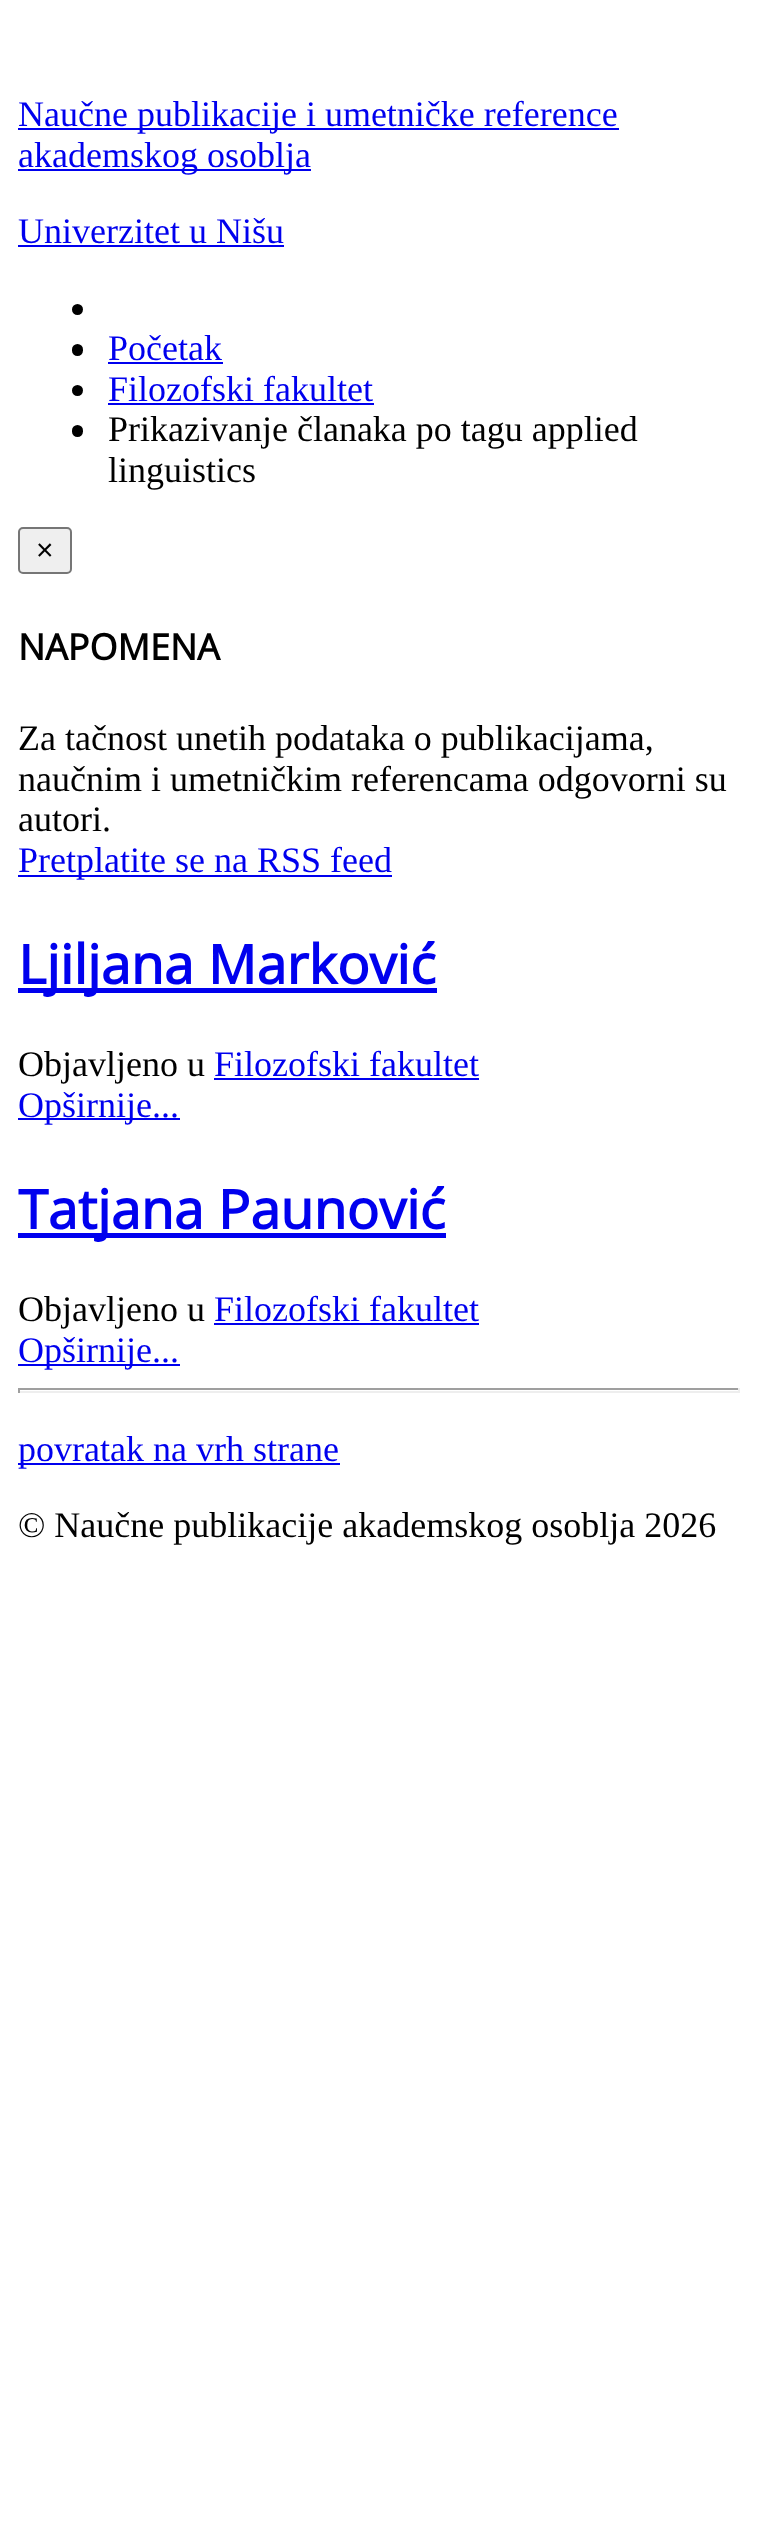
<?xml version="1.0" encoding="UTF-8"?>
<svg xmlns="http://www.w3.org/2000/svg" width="757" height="2541">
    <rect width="100%" height="100%" fill="#FFFFFF"/>
    <rect x="18" y="128" width="601" height="2" fill="#0000EE"/>
    <text x="18" y="126" font-family="Liberation Serif" font-size="36" fill="#0000EE">Naučne publikacije i umetničke reference</text>
    <rect x="18" y="169" width="293" height="2" fill="#0000EE"/>
    <text x="18" y="167" font-family="Liberation Serif" font-size="36" fill="#0000EE">akademskog osoblja</text>
    <text x="18" y="243" font-family="Liberation Serif" font-size="36" fill="#0000EE">Univerzitet u Nišu</text>
    <rect x="18" y="245" width="266" height="2" fill="#0000EE"/>
    <circle cx="77.5" cy="309.5" r="5.5" fill="#000000"/>
    <rect x="72" y="344" width="11" height="12" rx="5.5" fill="#000000"/>
    <text x="108" y="360" font-family="Liberation Serif" font-size="36" fill="#0000EE">Početak</text>
    <rect x="108" y="362" width="115" height="2" fill="#0000EE"/>
    <circle cx="77.5" cy="390.5" r="5.5" fill="#000000"/>
    <text x="108" y="401" font-family="Liberation Serif" font-size="36" fill="#0000EE">Filozofski fakultet</text>
    <rect x="108" y="403" width="266" height="2" fill="#0000EE"/>
    <rect x="72" y="425" width="11" height="12" rx="5.5" fill="#000000"/>
    <text font-family="Liberation Serif" font-size="36" fill="#000000">
        <tspan x="108" y="441">Prikazivanje članaka po tagu applied</tspan>
        <tspan x="108" y="482">linguistics</tspan>
    </text>
    <rect x="19" y="528" width="52" height="45" rx="4" fill="#EFEFEF" stroke="#767676" stroke-width="2"/>
    <text x="36" y="560" font-family="Liberation Sans" font-size="30" fill="#000000">×</text>
    <text x="18" y="660" font-family="Open Sans" font-size="36" font-weight="700" fill="#000000">NAPOMENA</text>
    <text font-family="Liberation Serif" font-size="36" fill="#000000">
        <tspan x="18" y="750">Za tačnost unetih podataka o publikacijama,</tspan>
        <tspan x="18" y="791">naučnim i umetničkim referencama odgovorni su</tspan>
        <tspan x="18" y="831">autori.</tspan>
    </text>
    <rect x="18" y="875" width="374" height="2" fill="#0000EE"/>
    <text x="18" y="872" font-family="Liberation Serif" font-size="36" fill="#0000EE">Pretplatite se na RSS feed</text>
    <rect x="18" y="988" width="419" height="5" fill="#0000EE"/>
    <text x="18" y="984" font-family="Open Sans" font-size="54" font-weight="700" fill="#0000EE">Ljiljana Marković</text>
    <text x="18" y="1076" font-family="Liberation Serif" font-size="36" fill="#000000">Objavljeno u</text>
    <text x="214" y="1076" font-family="Liberation Serif" font-size="36" fill="#0000EE">Filozofski fakultet</text>
    <rect x="214" y="1078" width="265" height="2" fill="#0000EE"/>
    <rect x="18" y="1118" width="162" height="2" fill="#0000EE"/>
    <text x="18" y="1117" font-family="Liberation Serif" font-size="36" fill="#0000EE">Opširnije...</text>
    <rect x="18" y="1233" width="428" height="5" fill="#0000EE"/>
    <text x="18" y="1229" font-family="Open Sans" font-size="54" font-weight="700" fill="#0000EE">Tatjana Paunović</text>
    <text x="18" y="1321" font-family="Liberation Serif" font-size="36" fill="#000000">Objavljeno u</text>
    <text x="214" y="1321" font-family="Liberation Serif" font-size="36" fill="#0000EE">Filozofski fakultet</text>
    <rect x="214" y="1323" width="265" height="2" fill="#0000EE"/>
    <rect x="18" y="1364" width="162" height="2" fill="#0000EE"/>
    <text x="18" y="1362" font-family="Liberation Serif" font-size="36" fill="#0000EE">Opširnije...</text>
    <rect x="18" y="1388" width="722" height="2" fill="#9F9F9F"/>
    <rect x="738" y="1388" width="2" height="5" fill="#EEEEEE"/>
    <rect x="18" y="1391" width="722" height="2" fill="#EEEEEE"/>
    <rect x="18" y="1388" width="2" height="5" fill="#9F9F9F"/>
    <rect x="18" y="1463" width="322" height="2" fill="#0000EE"/>
    <text x="18" y="1461" font-family="Liberation Serif" font-size="36" fill="#0000EE">povratak na vrh strane</text>
    <text x="18" y="1537" font-family="Liberation Serif" font-size="36" fill="#000000">© Naučne publikacije akademskog osoblja 2026</text>
</svg>
